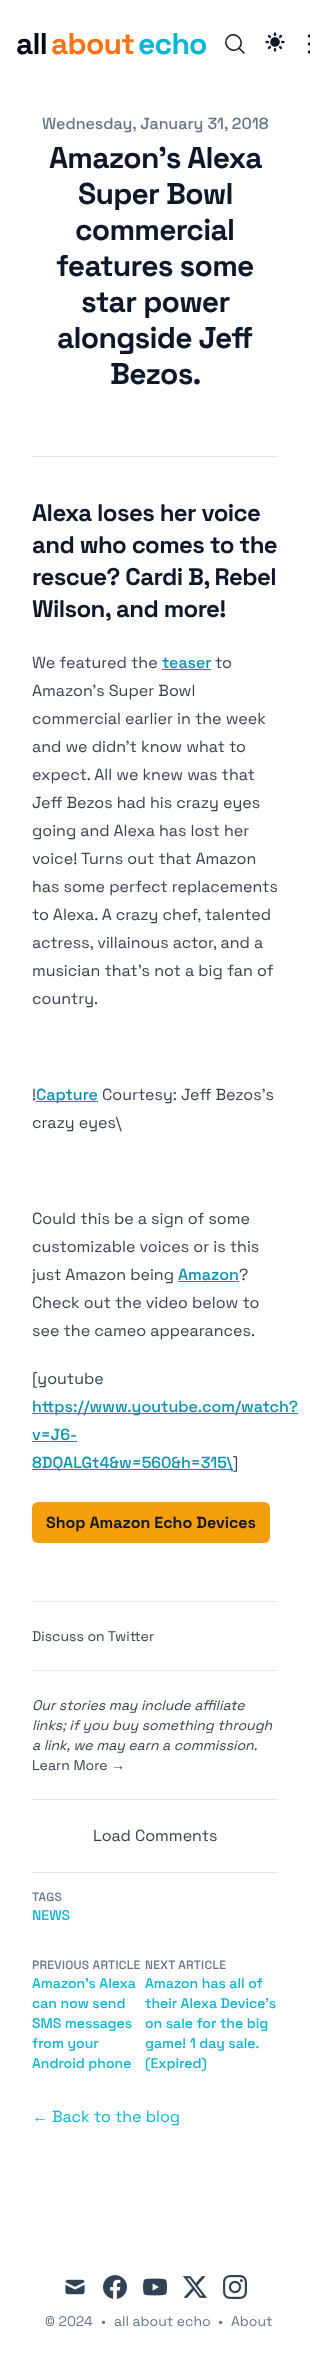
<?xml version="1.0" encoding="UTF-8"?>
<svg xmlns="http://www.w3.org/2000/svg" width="310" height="2371">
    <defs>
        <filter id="blur1" x="-50%" y="-200%" width="200%" height="500%"><feGaussianBlur stdDeviation="1"/></filter>
    </defs>
    <rect width="100%" height="100%" fill="#FFFFFF"/>
    <text x="16" y="54" font-family="Space Grotesk" font-size="30" font-weight="700" letter-spacing="-0.75" fill="#020617">all</text>
    <text x="51" y="54" font-family="Space Grotesk" font-size="30" font-weight="700" letter-spacing="-0.75" fill="#F97316">about</text>
    <text x="138" y="54" font-family="Space Grotesk" font-size="30" font-weight="700" letter-spacing="-0.75" fill="#06B6D4">echo</text>
    <path d="M 244 53 L 239 48 M 239 48 C 246 41 235 30 228 37 C 221 44 232 55 239 48 Z" fill="none" stroke="#0F172A" stroke-width="1.5" stroke-linecap="round" stroke-linejoin="round"/>
    <image x="265" y="32" width="20" height="20" href="img_01.png"/>
    <image x="307" y="34" width="3" height="20" href="img_02.png"/>
    <text x="42" y="129" font-family="Space Grotesk" font-size="16" font-weight="500" fill="#64748B">Wednesday, January 31, 2018</text>
    <text x="49" y="168" font-family="Space Grotesk" font-size="30" font-weight="700" letter-spacing="-0.75" fill="#0F172A">Amazon's Alexa</text>
    <text x="78" y="204" font-family="Space Grotesk" font-size="30" font-weight="700" letter-spacing="-0.75" fill="#0F172A">Super Bowl</text>
    <text x="75" y="240" font-family="Space Grotesk" font-size="30" font-weight="700" letter-spacing="-0.75" fill="#0F172A">commercial</text>
    <text x="56" y="276" font-family="Space Grotesk" font-size="30" font-weight="700" letter-spacing="-0.75" fill="#0F172A">features some</text>
    <text x="81" y="312" font-family="Space Grotesk" font-size="30" font-weight="700" letter-spacing="-0.75" fill="#0F172A">star power</text>
    <text x="57" y="348" font-family="Space Grotesk" font-size="30" font-weight="700" letter-spacing="-0.75" fill="#0F172A">alongside Jeff</text>
    <text x="110" y="384" font-family="Space Grotesk" font-size="30" font-weight="700" letter-spacing="-0.75" fill="#0F172A">Bezos.</text>
    <rect x="32" y="456" width="246" height="1" fill="#E2E8F0"/>
    <text font-family="Space Grotesk" font-size="24" font-weight="700" letter-spacing="-0.6" fill="#0F172A">
        <tspan x="32" y="521">Alexa loses her voice</tspan>
        <tspan x="32" y="553">and who comes to the</tspan>
        <tspan x="32" y="585">rescue? Cardi B, Rebel</tspan>
        <tspan x="32" y="617">Wilson, and more!</tspan>
    </text>
    <text x="32" y="668" font-family="Space Grotesk" font-size="16" fill="#374151">We featured the</text>
    <text x="162" y="668" font-family="Space Grotesk" font-size="16" font-weight="500" fill="#0891B2">teaser</text>
    <rect x="162" y="669" width="49" height="1" fill="#0891B2"/>
    <text x="215" y="668" font-family="Space Grotesk" font-size="16" fill="#374151">to</text>
    <text font-family="Space Grotesk" font-size="16" fill="#374151">
        <tspan x="32" y="696">Amazon's Super Bowl</tspan>
        <tspan x="32" y="724">commercial earlier in the week</tspan>
        <tspan x="32" y="752">and we didn't know what to</tspan>
        <tspan x="32" y="780">expect. All we knew was that</tspan>
        <tspan x="32" y="808">Jeff Bezos had his crazy eyes</tspan>
        <tspan x="32" y="836">going and Alexa has lost her</tspan>
        <tspan x="32" y="864">voice! Turns out that Amazon</tspan>
        <tspan x="32" y="892">has some perfect replacements</tspan>
        <tspan x="32" y="920">to Alexa. A crazy chef, talented</tspan>
        <tspan x="32" y="948">actress, villainous actor, and a</tspan>
        <tspan x="32" y="976">musician that's not a big fan of</tspan>
        <tspan x="32" y="1004">country.</tspan>
    </text>
    <text x="32" y="1100" font-family="Space Grotesk" font-size="16" fill="#374151">!</text>
    <rect x="36" y="1101" width="62" height="1" fill="#0891B2"/>
    <text x="36" y="1100" font-family="Space Grotesk" font-size="16" font-weight="500" fill="#0891B2">Capture</text>
    <text x="102" y="1100" font-family="Space Grotesk" font-size="16" fill="#374151">Courtesy: Jeff Bezos's</text>
    <text x="32" y="1128" font-family="Space Grotesk" font-size="16" fill="#374151">crazy eyes\</text>
    <text font-family="Space Grotesk" font-size="16" fill="#374151">
        <tspan x="32" y="1224">Could this be a sign of some</tspan>
        <tspan x="32" y="1252">customizable voices or is this</tspan>
        <tspan x="32" y="1280">just Amazon being</tspan>
    </text>
    <text x="178" y="1280" font-family="Space Grotesk" font-size="16" font-weight="500" fill="#0891B2">Amazon</text>
    <rect x="178" y="1281" width="61" height="1" fill="#0891B2"/>
    <text x="239" y="1280" font-family="Space Grotesk" font-size="16" fill="#374151">?</text>
    <text font-family="Space Grotesk" font-size="16" fill="#374151">
        <tspan x="32" y="1308">Check out the video below to</tspan>
        <tspan x="32" y="1336">see the cameo appearances.</tspan>
    </text>
    <text x="32" y="1384" font-family="Space Grotesk" font-size="16" fill="#374151">[youtube</text>
    <rect x="32" y="1413" width="266" height="1" fill="#0891B2"/>
    <text font-family="Space Grotesk" font-size="16" font-weight="500" fill="#0891B2">
        <tspan x="32" y="1412">https://www.youtube.com/watch?</tspan>
        <tspan x="32" y="1440">v=J6-</tspan>
    </text>
    <rect x="32" y="1441" width="45" height="1" fill="#0891B2"/>
    <rect x="32" y="1469" width="201" height="1" fill="#0891B2"/>
    <text x="32" y="1468" font-family="Space Grotesk" font-size="16" font-weight="500" fill="#0891B2">8DQALGt4&amp;w=560&amp;h=315\</text>
    <text x="233" y="1468" font-family="Space Grotesk" font-size="16" fill="#374151">]</text>
    <rect x="32" y="1503" width="238" height="41" rx="6" fill="#000000" fill-opacity="0.05" filter="url(#blur1)"/>
    <rect x="32" y="1502" width="238" height="41" rx="6" fill="#F59E0B"/>
    <text x="46" y="1528" font-family="Space Grotesk" font-size="16" font-weight="700" fill="#0F172A">Shop Amazon Echo Devices</text>
    <rect x="32" y="1601" width="246" height="1" fill="#E2E8F0"/>
    <text x="32" y="1641" font-family="Space Grotesk" font-size="14" fill="#374151">Discuss on Twitter</text>
    <rect x="32" y="1670" width="246" height="1" fill="#E2E8F0"/>
    <text font-family="Space Grotesk" font-size="14" font-style="italic" fill="#374151">
        <tspan x="32" y="1710">Our stories may include affiliate</tspan>
        <tspan x="32" y="1730">links; if you buy something through</tspan>
        <tspan x="32" y="1750">a link, we may earn a commission.</tspan>
    </text>
    <text x="32" y="1770" font-family="Space Grotesk" font-size="14" fill="#374151">Learn More</text>
    <text x="111" y="1770" font-family="Liberation Sans" font-size="14" fill="#374151">→</text>
    <rect x="32" y="1799" width="246" height="1" fill="#E2E8F0"/>
    <text x="93" y="1841" font-family="Space Grotesk" font-size="16" fill="#374151">Load Comments</text>
    <rect x="32" y="1872" width="246" height="1" fill="#E2E8F0"/>
    <text x="32" y="1901" font-family="Space Grotesk" font-size="12" font-weight="500" letter-spacing="0.25" fill="#64748B">TAGS</text>
    <text x="32" y="1920" font-family="Space Grotesk" font-size="14" font-weight="500" fill="#06B6D4">NEWS</text>
    <text x="32" y="1969" font-family="Space Grotesk" font-size="12" font-weight="500" letter-spacing="0.25" fill="#64748B">PREVIOUS ARTICLE</text>
    <text font-family="Space Grotesk" font-size="14" font-weight="500" fill="#06B6D4">
        <tspan x="32" y="1988">Amazon's Alexa</tspan>
        <tspan x="32" y="2008">can now send</tspan>
        <tspan x="32" y="2028">SMS messages</tspan>
        <tspan x="32" y="2048">from your</tspan>
        <tspan x="32" y="2068">Android phone</tspan>
    </text>
    <text x="145" y="1969" font-family="Space Grotesk" font-size="12" font-weight="500" letter-spacing="0.25" fill="#64748B">NEXT ARTICLE</text>
    <text font-family="Space Grotesk" font-size="14" font-weight="500" fill="#06B6D4">
        <tspan x="145" y="1988">Amazon has all of</tspan>
        <tspan x="145" y="2008">their Alexa Device's</tspan>
        <tspan x="145" y="2028">on sale for the big</tspan>
        <tspan x="145" y="2048">game! 1 day sale.</tspan>
        <tspan x="145" y="2068">(Expired)</tspan>
    </text>
    <text x="32" y="2122" font-family="Liberation Sans" font-size="16" fill="#06B6D4">←</text>
    <text x="52" y="2122" font-family="Space Grotesk" font-size="16" fill="#06B6D4">Back to the blog</text>
    <image x="65" y="2279" width="20" height="16" href="img_03.png"/>
    <image x="103" y="2275" width="24" height="24" href="img_04.png"/>
    <image x="143" y="2278" width="24" height="18" href="img_05.png"/>
    <image x="183" y="2276" width="24" height="22" href="img_06.png"/>
    <image x="223" y="2275" width="24" height="24" href="img_07.png"/>
    <text x="45" y="2326" font-family="Space Grotesk" font-size="14" fill="#64748B">© 2024</text>
    <text x="101" y="2326" font-family="Space Grotesk" font-size="14" fill="#64748B">•</text>
    <text x="114" y="2326" font-family="Space Grotesk" font-size="14" fill="#64748B">all about echo</text>
    <text x="218" y="2326" font-family="Space Grotesk" font-size="14" fill="#64748B">•</text>
    <text x="231" y="2326" font-family="Space Grotesk" font-size="14" fill="#64748B">About</text>
</svg>
